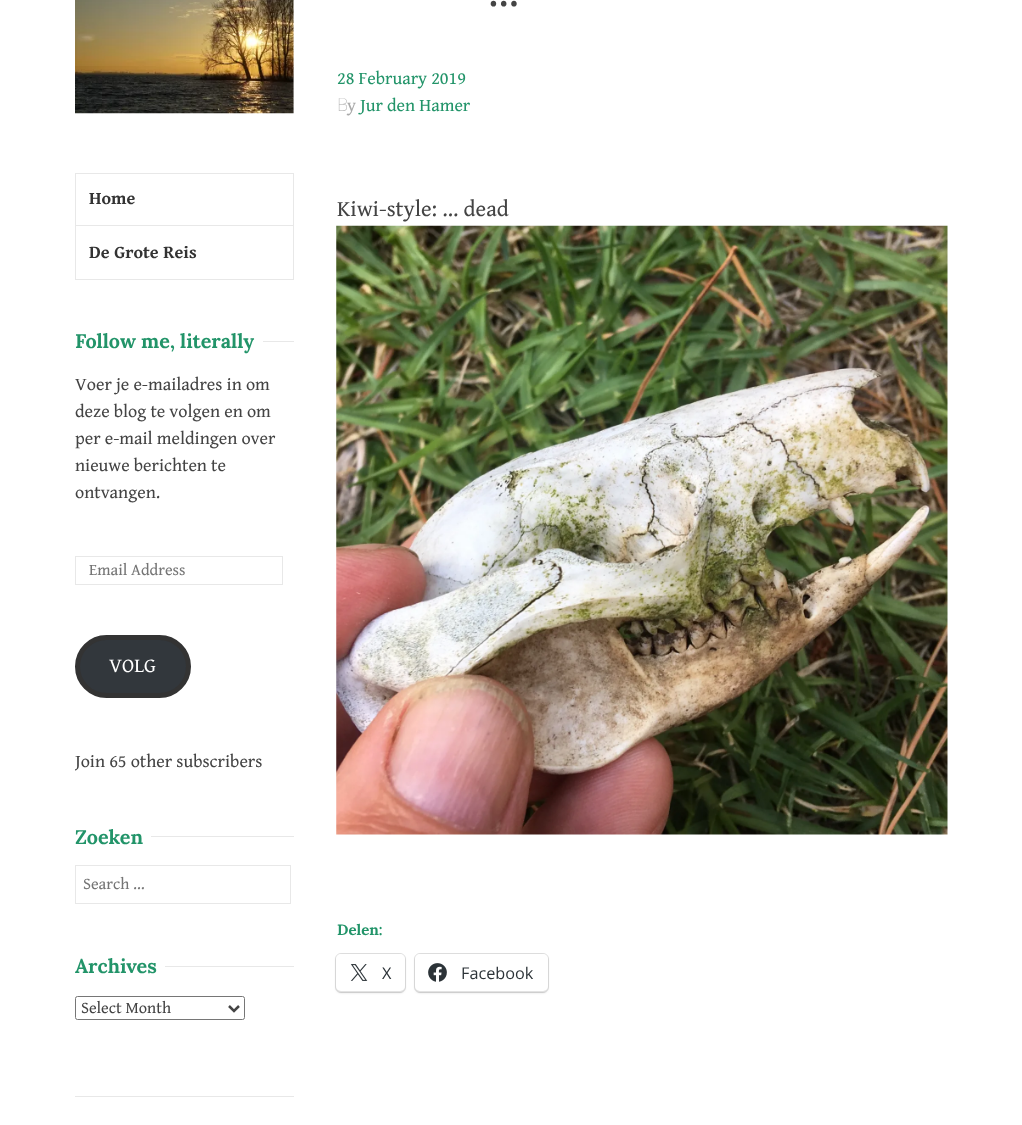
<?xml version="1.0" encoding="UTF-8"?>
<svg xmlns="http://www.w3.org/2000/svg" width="1022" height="1125">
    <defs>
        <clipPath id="clip1"><rect x="75" y="0" width="219" height="1096"/></clipPath>
        <filter id="blur1" x="-50%" y="-200%" width="200%" height="500%"><feGaussianBlur stdDeviation="1"/></filter>
    </defs>
    <rect width="100%" height="100%" fill="#FFFFFF"/>
    <rect x="75" y="1096" width="219" height="1" fill="#E8E8E8"/>
    <image x="75" y="0" width="219" height="114" href="img_01.png"/>
    <rect x="75" y="173" width="219" height="1" fill="#E8E8E8"/>
    <rect x="293" y="173" width="1" height="107" fill="#E8E8E8"/>
    <rect x="75" y="173" width="1" height="107" fill="#E8E8E8"/>
    <rect x="76" y="225" width="217" height="1" fill="#E8E8E8"/>
    <text x="89" y="204" font-family="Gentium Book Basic" font-size="18" font-weight="700" fill="#333333">Home</text>
    <rect x="76" y="279" width="217" height="1" fill="#E8E8E8"/>
    <text x="89" y="258" font-family="Gentium Book Basic" font-size="18" font-weight="700" fill="#333333">De Grote Reis</text>
    <text x="75" y="348" font-family="Lora" font-size="19.75" font-weight="700" fill="#229469">Follow me, literally</text>
    <rect x="263" y="341" width="31" height="1" fill="#E8E8E8"/>
    <text font-family="Gentium Book Basic" font-size="18" fill="#444444">
        <tspan x="75" y="390">Voer je e-mailadres in om</tspan>
        <tspan x="75" y="417">deze blog te volgen en om</tspan>
        <tspan x="75" y="444">per e-mail meldingen over</tspan>
        <tspan x="75" y="471">nieuwe berichten te</tspan>
        <tspan x="75" y="498">ontvangen.</tspan>
    </text>
    <rect x="75.5" y="556.5" width="207" height="28" fill="none" stroke="#E8E8E8"/>
    <text x="89" y="575" font-family="Gentium Book Basic" font-size="16.25" fill="#757575">Email Address</text>
    <rect x="77.5" y="637.5" width="111" height="58" rx="29" fill="#32373C" stroke="#333333" stroke-width="5"/>
    <text x="109" y="672" font-family="Gentium Book Basic" font-size="20" fill="#FFFFFF">VOLG</text>
    <g clip-path="url(#clip1)">
        <text x="75" y="767" font-family="Gentium Book Basic" font-size="18" fill="#444444">Join 65 other subscribers</text>
    </g>
    <text x="75" y="844" font-family="Lora" font-size="19.75" font-weight="700" fill="#229469">Zoeken</text>
    <rect x="151" y="836" width="143" height="1" fill="#E8E8E8"/>
    <rect x="75.5" y="865.5" width="215" height="38" fill="none" stroke="#E8E8E8"/>
    <text x="83" y="889" font-family="Gentium Book Basic" font-size="16.25" fill="#757575">Search …</text>
    <text x="75" y="973" font-family="Lora" font-size="19.75" font-weight="700" fill="#229469">Archives</text>
    <rect x="165" y="966" width="129" height="1" fill="#E8E8E8"/>
    <rect x="75.5" y="996.5" width="169" height="23" rx="2" fill="none" stroke="#767676"/>
    <path d="M 229 1006 L 234 1011 L 239 1006" fill="none" stroke="#444444" stroke-width="2.5"/>
    <text x="81" y="1013" font-family="Gentium Book Basic" font-size="16.25" fill="#444444">Select Month</text>
    <text x="489" y="6" font-family="Lora" font-size="38" font-weight="700" fill="#444444">…</text>
    <text x="337" y="84" font-family="Gentium Book Basic" font-size="18" fill="#229469">28 February 2019</text>
    <text x="337" y="111" font-family="Noto Sans" font-size="18" font-weight="100" fill="#AAAAAA">B</text>
    <text x="347" y="111" font-family="Gentium Book Basic" font-size="18" fill="#AAAAAA">y</text>
    <text x="360" y="111" font-family="Gentium Book Basic" font-size="18" fill="#229469">Jur den Hamer</text>
    <text x="337" y="216" font-family="Gentium Book Basic" font-size="22.5" fill="#444444">Kiwi-style: … dead</text>
    <image x="336" y="225" width="612" height="610" href="img_02.png"/>
    <text x="337" y="935" font-family="Lora" font-size="15" font-weight="700" fill="#229469">Delen:</text>
    <rect x="335.5" y="953.5" width="70" height="39" rx="5.5" fill="none" stroke="#E0E0E0"/>
    <rect x="336" y="955" width="69" height="38" rx="5" fill="#000000" fill-opacity="0.12" filter="url(#blur1)"/>
    <rect x="336" y="954" width="69" height="37" rx="5" fill="#FFFFFF"/>
    <image x="350" y="964" width="18" height="17" href="img_03.png"/>
    <text x="382" y="979" font-family="Open Sans" font-size="16.25" fill="#2C3338">X</text>
    <rect x="414.5" y="953.5" width="134" height="39" rx="5.5" fill="none" stroke="#E0E0E0"/>
    <rect x="415" y="955" width="133" height="38" rx="5" fill="#000000" fill-opacity="0.12" filter="url(#blur1)"/>
    <rect x="415" y="954" width="133" height="37" rx="5" fill="#FFFFFF"/>
    <image x="428" y="963" width="19" height="19" href="img_04.png"/>
    <text x="461" y="979" font-family="Open Sans" font-size="16.25" fill="#2C3338">Facebook</text>
</svg>
